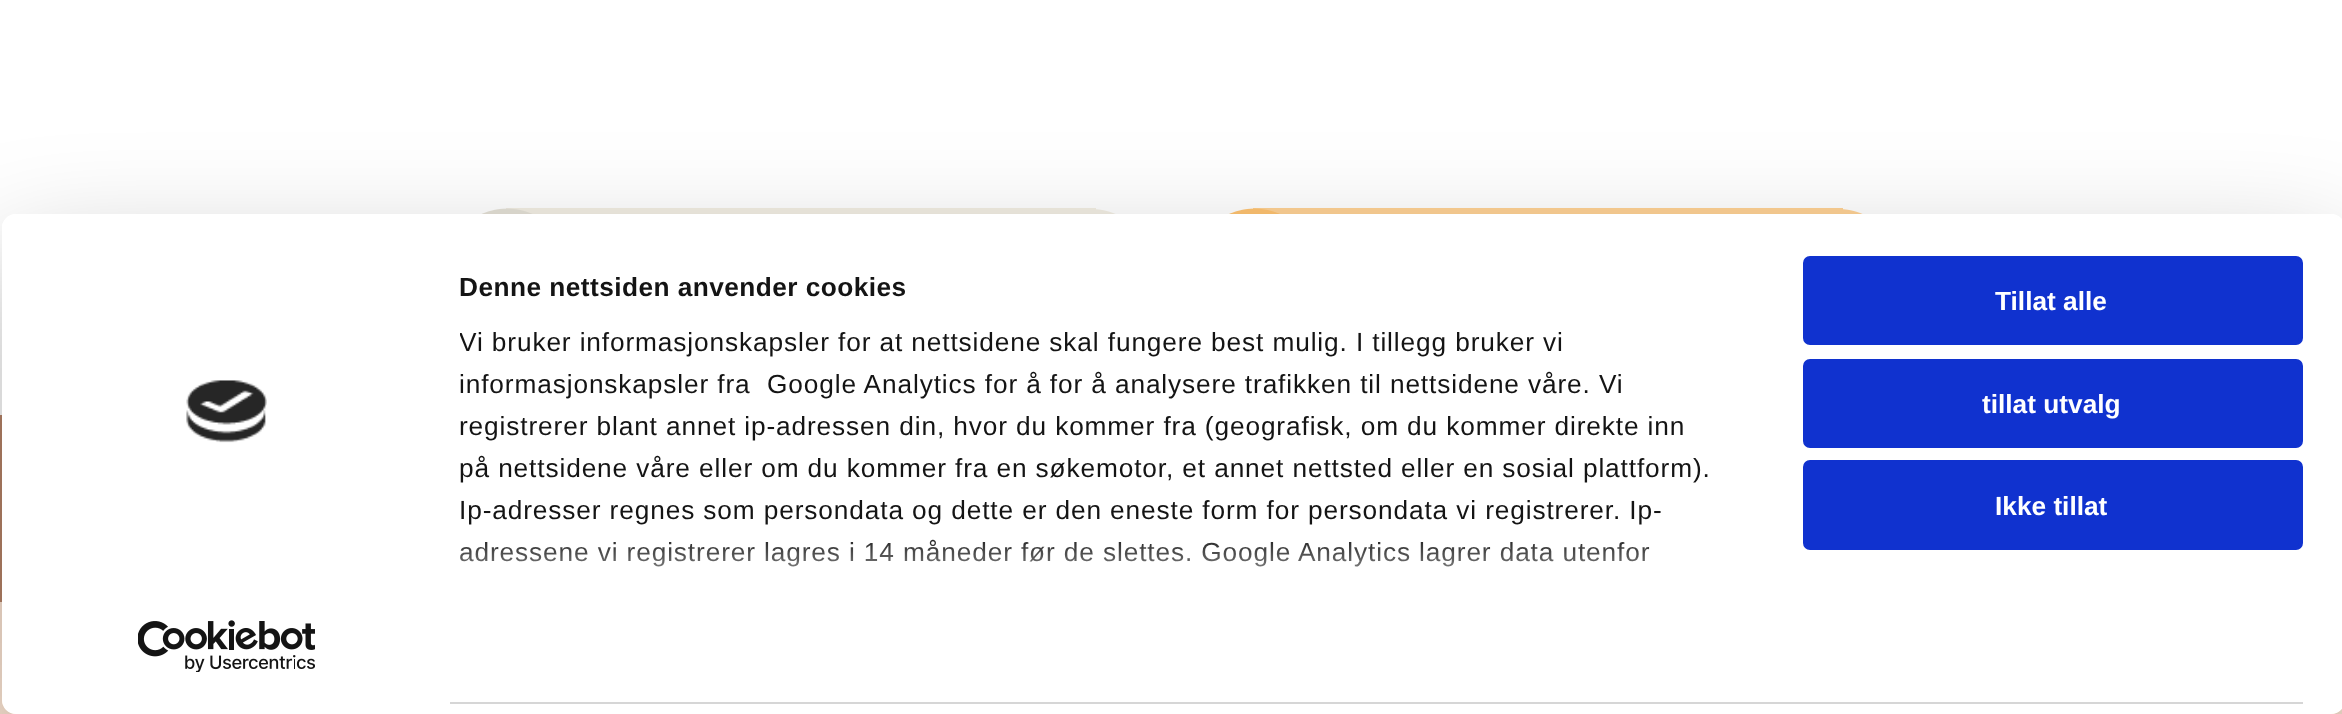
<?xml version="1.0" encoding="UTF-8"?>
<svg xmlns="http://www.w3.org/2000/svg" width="2342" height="714">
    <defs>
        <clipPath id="clip1"><path d="M 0 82 H 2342 V 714 H 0 Z M 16 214 H 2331 C 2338.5 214 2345 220.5 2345 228 V 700 C 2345 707.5 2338.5 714 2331 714 H 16 C 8.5 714 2 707.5 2 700 V 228 C 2 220.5 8.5 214 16 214 Z" clip-rule="evenodd"/></clipPath>
        <filter id="blur1" x="-50%" y="-200%" width="200%" height="500%"><feGaussianBlur stdDeviation="61"/></filter>
        <clipPath id="clip2"><rect x="460" y="266" width="1292" height="387"/></clipPath>
        <linearGradient id="g1" gradientUnits="userSpaceOnUse" x1="1088" y1="664" x2="1088" y2="533"><stop offset="0" stop-color="#FFFFFF"/><stop offset="0.5" stop-color="#FFFFFF" stop-opacity="0.8"/><stop offset="1" stop-color="#FFFFFF" stop-opacity="0"/></linearGradient>
    </defs>
    <rect width="100%" height="100%" fill="#FFFFFF"/>
    <image x="481" y="208" width="635" height="6" href="img_01.png"/>
    <image x="1229" y="208" width="634" height="6" href="img_02.png"/>
    <rect x="0" y="415" width="2" height="187" fill="#B88569"/>
    <rect x="0" y="602" width="2342" height="112" fill="#FFE8D6"/>
    <g clip-path="url(#clip1)">
        <rect x="2" y="266" width="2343" height="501" rx="14" fill="#000000" fill-opacity="0.3" filter="url(#blur1)"/>
    </g>
    <rect x="2" y="214" width="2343" height="500" rx="14" fill="#FFFFFF"/>
    <image x="186" y="380" width="81" height="63" href="img_03.png"/>
    <image x="138" y="620" width="177" height="52" href="img_04.png"/>
    <text x="459" y="296" font-family="Liberation Sans" font-size="26.25" font-weight="700" letter-spacing="0.45" fill="#141414">Denne nettsiden anvender cookies</text>
    <g clip-path="url(#clip2)">
        <text x="459" y="351" font-family="Liberation Sans" font-size="26.25" letter-spacing="0.88" fill="#141414">Vi bruker informasjonskapsler for at nettsidene skal fungere best mulig. I tillegg bruker vi</text>
    </g>
    <text font-family="Liberation Sans" font-size="26.25" letter-spacing="0.88" fill="#141414" xml:space="preserve"><tspan x="459" y="393">informasjonskapsler fra  Google Analytics for å for å analysere trafikken til nettsidene våre. Vi</tspan><tspan x="459" y="435">registrerer blant annet ip-adressen din, hvor du kommer fra (geografisk, om du kommer direkte inn</tspan><tspan x="459" y="477">på nettsidene våre eller om du kommer fra en søkemotor, et annet nettsted eller en sosial plattform).</tspan><tspan x="459" y="519">Ip-adresser regnes som persondata og dette er den eneste form for persondata vi registrerer. Ip-</tspan><tspan x="459" y="561">adressene vi registrerer lagres i 14 måneder før de slettes. Google Analytics lagrer data utenfor</tspan></text>
    <rect x="459" y="540" width="1190" height="27" fill="url(#g1)"/>
    <rect x="450" y="702" width="1853" height="2" fill="#D6D6D6"/>
    <rect x="1805" y="258" width="496" height="85" rx="5" fill="#1032CF" stroke="#1032CF" stroke-width="4"/>
    <text x="1995" y="310" font-family="Liberation Sans" font-size="26.25" font-weight="700" fill="#FFFFFF">Tillat alle</text>
    <rect x="1805" y="361" width="496" height="85" rx="5" fill="#1032CF" stroke="#1032CF" stroke-width="4"/>
    <text x="1982" y="413" font-family="Liberation Sans" font-size="26.25" font-weight="700" fill="#FFFFFF">tillat utvalg</text>
    <rect x="1805" y="462" width="496" height="86" rx="5" fill="#1032CF" stroke="#1032CF" stroke-width="4"/>
    <text x="1995" y="515" font-family="Liberation Sans" font-size="26.25" font-weight="700" fill="#FFFFFF">Ikke tillat</text>
</svg>
